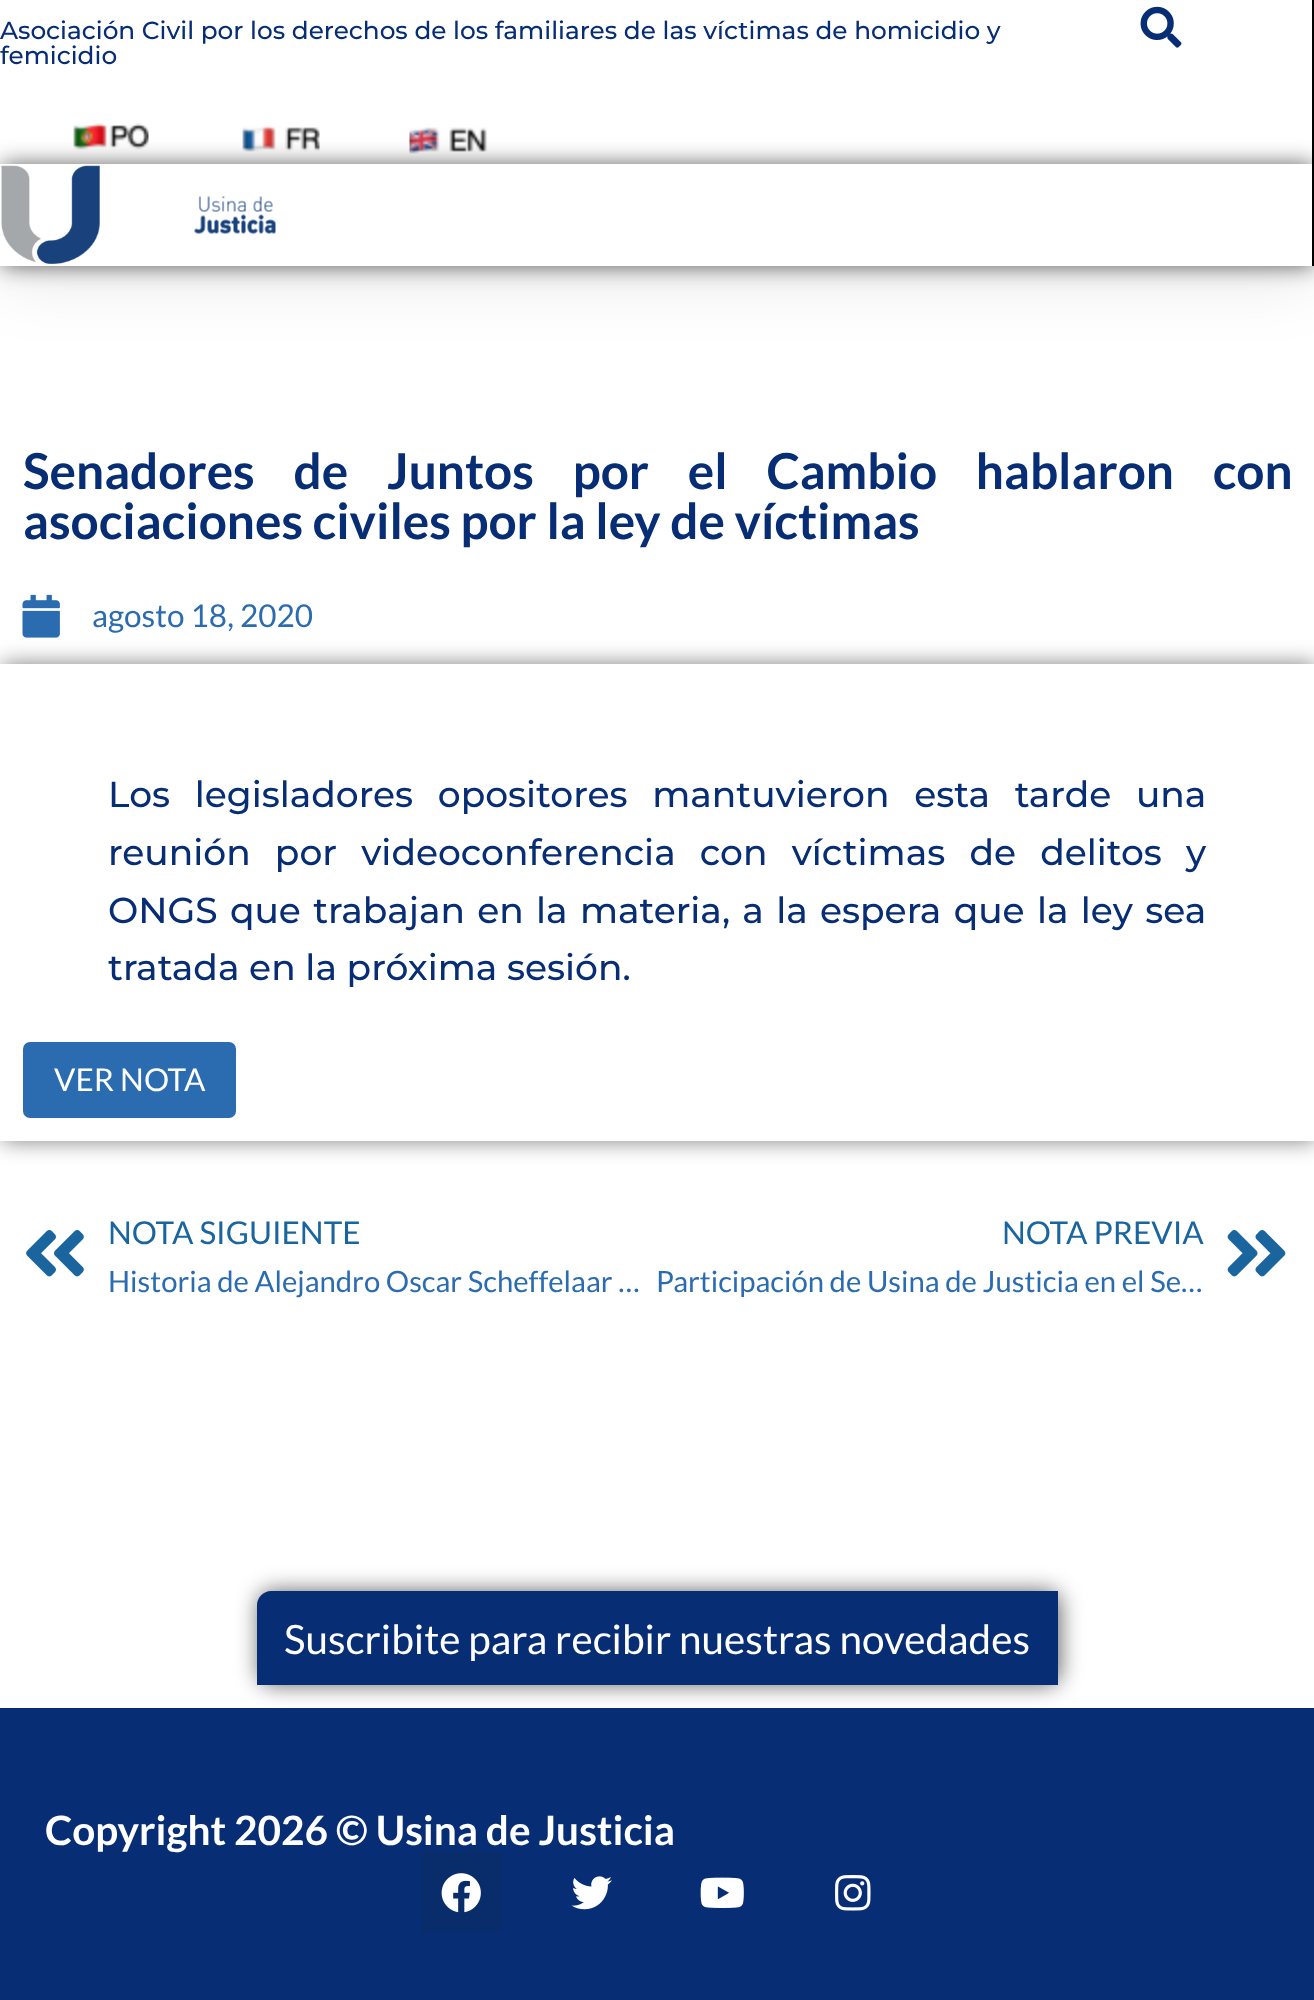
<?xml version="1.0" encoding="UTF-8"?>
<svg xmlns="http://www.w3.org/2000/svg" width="1314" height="2000">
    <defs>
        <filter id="blur1" x="-50%" y="-200%" width="200%" height="500%"><feGaussianBlur stdDeviation="34"/></filter>
        <filter id="blur2" x="-50%" y="-200%" width="200%" height="500%"><feGaussianBlur stdDeviation="11"/></filter>
        <clipPath id="clip1"><path d="M 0 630 H 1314 V 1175 H 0 Z M 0 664 H 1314 V 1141 H 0 Z" clip-rule="evenodd"/></clipPath>
    </defs>
    <rect width="100%" height="100%" fill="#FFFFFF"/>
    <rect x="0" y="11" width="1314" height="266" fill="#000000" fill-opacity="0.1" filter="url(#blur1)"/>
    <rect x="1312" y="0" width="2" height="266" fill="#000000"/>
    <rect x="0" y="0" width="1312" height="164" fill="#FFFFFF"/>
    <text font-family="Montserrat" font-size="24.75" font-weight="500" fill="#072D75">
        <tspan x="0" y="39">Asociación Civil por los derechos de los familiares de las víctimas de homicidio y</tspan>
        <tspan x="0" y="64">femicidio</tspan>
    </text>
    <image x="1140" y="6" width="42" height="42" href="img_01.png"/>
    <image x="73" y="123" width="76" height="27" href="img_02.png"/>
    <image x="242" y="125" width="78" height="27" href="img_03.png"/>
    <image x="409" y="127" width="79" height="27" href="img_04.png"/>
    <rect x="2" y="164" width="1312" height="102" fill="#000000" fill-opacity="0.61" filter="url(#blur2)"/>
    <rect x="0" y="164" width="1312" height="102" fill="#FFFFFF"/>
    <image x="1" y="165" width="99" height="100" href="img_05.png"/>
    <image x="194" y="196" width="82" height="38" href="img_06.png"/>
    <text font-family="Lato" font-size="49.5" font-weight="700" fill="#072D75">
        <tspan x="23" y="489" word-spacing="29.25">Senadores de Juntos por el Cambio hablaron con</tspan>
        <tspan x="23" y="539">asociaciones civiles por la ley de víctimas</tspan>
    </text>
    <image x="22" y="594" width="38" height="44" href="img_07.png"/>
    <text x="92" y="627" font-family="Lato" font-size="31.5" fill="#2B6CB0">agosto 18, 2020</text>
    <g clip-path="url(#clip1)">
        <rect x="2" y="664" width="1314" height="477" fill="#000000" fill-opacity="0.5" filter="url(#blur2)"/>
    </g>
    <text font-family="Montserrat" font-size="36" font-weight="500" fill="#072D75">
        <tspan x="108" y="807" word-spacing="15">Los legisladores opositores mantuvieron esta tarde una</tspan>
        <tspan x="108" y="865" word-spacing="14.5">reunión por videoconferencia con víctimas de delitos y</tspan>
        <tspan x="108" y="923" word-spacing="2.6">ONGS que trabajan en la materia, a la espera que la ley sea</tspan>
        <tspan x="108" y="980">tratada en la próxima sesión.</tspan>
    </text>
    <rect x="23" y="1042" width="213" height="76" rx="7" fill="#2B6CB0"/>
    <text x="54" y="1091" font-family="Lato" font-size="31.5" fill="#FFFFFF">VER NOTA</text>
    <image x="26" y="1230" width="58" height="47" href="img_08.png"/>
    <text x="108" y="1244" font-family="Lato" font-size="31.5" fill="#1B659E">NOTA SIGUIENTE</text>
    <text x="108" y="1292" font-family="Lato" font-size="29.25" fill="#2B6CB0">Historia de Alejandro Oscar Scheffelaar …</text>
    <text x="1002" y="1244" font-family="Lato" font-size="31.5" fill="#1B659E">NOTA PREVIA</text>
    <text x="656" y="1292" font-family="Lato" font-size="29.25" fill="#2B6CB0">Participación de Usina de Justicia en el Se…</text>
    <image x="1227" y="1230" width="59" height="47" href="img_09.png"/>
    <rect x="259" y="1591" width="801" height="94" rx="14" fill="#000000" fill-opacity="0.61" filter="url(#blur2)"/>
    <path d="M 271 1591 H 1058 V 1685 H 257 V 1605 C 257 1597.5 263.5 1591 271 1591 Z" fill="#072D75"/>
    <text x="284" y="1654" font-family="Lato" font-size="40.5" fill="#FFFFFF">Suscribite para recibir nuestras novedades</text>
    <rect x="0" y="1708" width="1314" height="292" fill="#072D75"/>
    <text x="45" y="1845" font-family="Lato" font-size="40.5" font-weight="700" fill="#FFFFFF">Copyright 2026 © Usina de Justicia</text>
    <rect x="421" y="1852" width="81" height="81" fill="#092C6B"/>
    <image x="441" y="1873" width="40" height="40" href="img_10.png"/>
    <image x="571" y="1876" width="41" height="34" href="img_11.png"/>
    <image x="700" y="1877" width="44" height="31" href="img_12.png"/>
    <image x="835" y="1875" width="36" height="36" href="img_13.png"/>
</svg>
